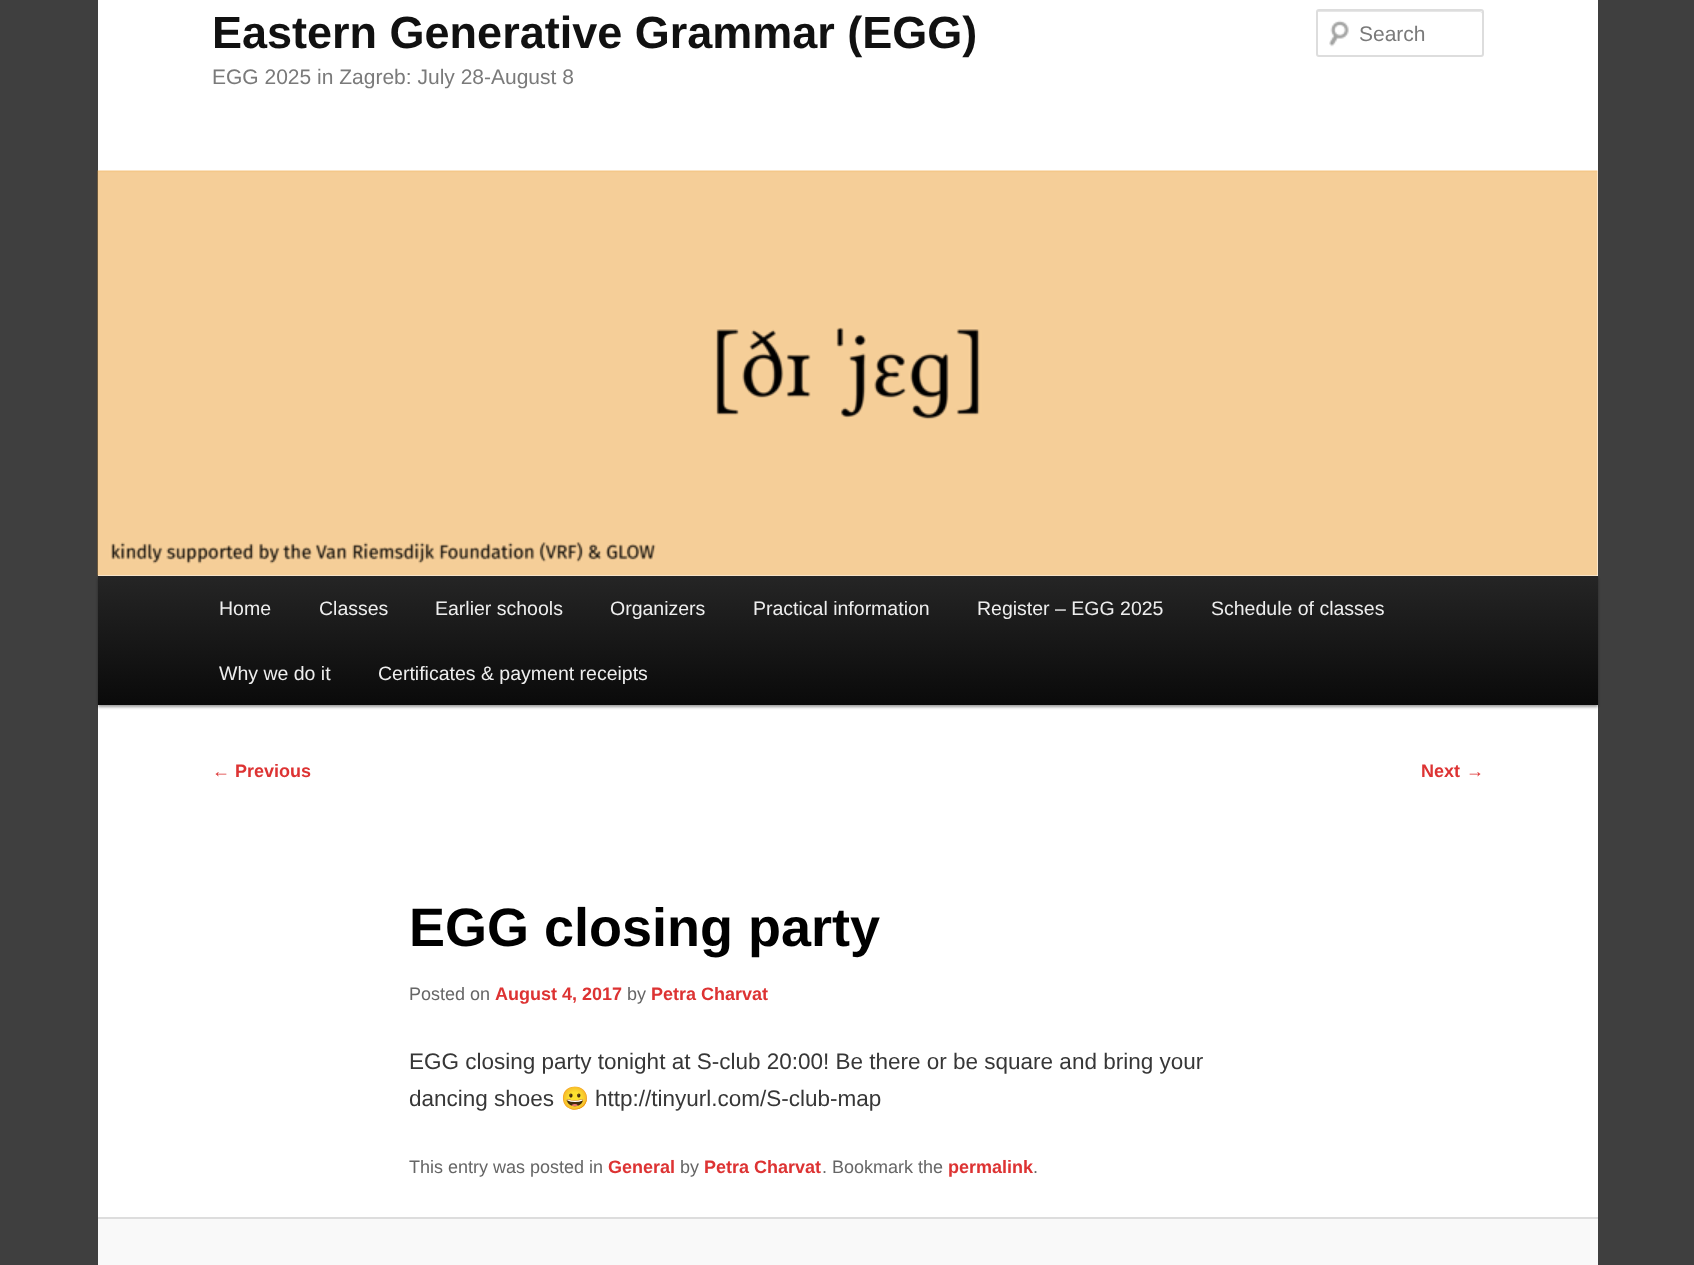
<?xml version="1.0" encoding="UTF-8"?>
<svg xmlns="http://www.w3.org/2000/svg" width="1694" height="1265">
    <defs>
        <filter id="blur1" x="-50%" y="-200%" width="200%" height="500%"><feGaussianBlur stdDeviation="1.5"/></filter>
        <linearGradient id="g1" gradientUnits="userSpaceOnUse" x1="848" y1="576" x2="848" y2="705"><stop offset="0" stop-color="#252525"/><stop offset="1" stop-color="#0A0A0A"/></linearGradient>
    </defs>
    <rect width="100%" height="100%" fill="#3F3F3F"/>
    <rect x="98" y="0" width="1500" height="1217" fill="#FFFFFF"/>
    <text x="212" y="48" font-family="Liberation Sans" font-size="45" font-weight="700" fill="#111111">Eastern Generative Grammar (EGG)</text>
    <text x="212" y="84" font-family="Liberation Sans" font-size="21" fill="#7A7A7A">EGG 2025 in Zagreb: July 28-August 8</text>
    <image x="1329" y="20" width="20" height="27" href="img_01.png"/>
    <path d="M 1318 12 H 1480 C 1481 12 1482 13 1482 14 V 12 C 1482 12 1481 11 1480 11 H 1318 C 1318 11 1317 12 1317 12 V 14 Z" fill="#E6E6E6"/>
    <rect x="1317" y="10" width="166" height="46" rx="2" fill="none" stroke="#DDDDDD" stroke-width="2"/>
    <text x="1359" y="41" font-family="Liberation Sans" font-size="21" fill="#7A7A7A">Search</text>
    <rect x="98" y="578" width="1500" height="129" fill="#000000" fill-opacity="0.4" filter="url(#blur1)"/>
    <image x="97" y="170" width="1501" height="406" href="img_02.png"/>
    <rect x="98" y="576" width="1500" height="129" fill="url(#g1)"/>
    <text x="219" y="615" font-family="Liberation Sans" font-size="19.5" fill="#EEEEEE">Home</text>
    <text x="319" y="615" font-family="Liberation Sans" font-size="19.5" fill="#EEEEEE">Classes</text>
    <text x="435" y="615" font-family="Liberation Sans" font-size="19.5" fill="#EEEEEE">Earlier schools</text>
    <text x="610" y="615" font-family="Liberation Sans" font-size="19.5" fill="#EEEEEE">Organizers</text>
    <text x="753" y="615" font-family="Liberation Sans" font-size="19.5" fill="#EEEEEE">Practical information</text>
    <text x="977" y="615" font-family="Liberation Sans" font-size="19.5" fill="#EEEEEE">Register – EGG 2025</text>
    <text x="1211" y="615" font-family="Liberation Sans" font-size="19.5" fill="#EEEEEE">Schedule of classes</text>
    <text x="219" y="680" font-family="Liberation Sans" font-size="19.5" fill="#EEEEEE">Why we do it</text>
    <text x="378" y="680" font-family="Liberation Sans" font-size="19.5" fill="#EEEEEE">Certificates &amp; payment receipts</text>
    <text x="212" y="777" font-family="Liberation Sans" font-size="18" fill="#DD3333">←</text>
    <text x="235" y="777" font-family="Liberation Sans" font-size="18" font-weight="700" fill="#DD3333">Previous</text>
    <text x="1421" y="777" font-family="Liberation Sans" font-size="18" font-weight="700" fill="#DD3333">Next</text>
    <text x="1466" y="777" font-family="Liberation Sans" font-size="18" fill="#DD3333">→</text>
    <text x="409" y="946" font-family="Liberation Sans" font-size="54" font-weight="700" fill="#000000">EGG closing party</text>
    <text x="409" y="1000" font-family="Liberation Sans" font-size="18" fill="#666666">Posted on</text>
    <text x="495" y="1000" font-family="Liberation Sans" font-size="18" font-weight="700" fill="#DD3333">August 4, 2017</text>
    <text x="627" y="1000" font-family="Liberation Sans" font-size="18" fill="#666666">by</text>
    <text x="651" y="1000" font-family="Liberation Sans" font-size="18" font-weight="700" fill="#DD3333">Petra Charvat</text>
    <text font-family="Liberation Sans" font-size="22.5" fill="#373737">
        <tspan x="409" y="1069">EGG closing party tonight at S-club 20:00! Be there or be square and bring your</tspan>
        <tspan x="409" y="1106">dancing shoes</tspan>
    </text>
    <text x="561" y="1106" font-family="Noto Color Emoji" font-size="22.5" fill="#373737">😀</text>
    <text x="595" y="1106" font-family="Liberation Sans" font-size="22.5" fill="#373737">http://tinyurl.com/S-club-map</text>
    <text x="409" y="1173" font-family="Liberation Sans" font-size="18" fill="#666666">This entry was posted in</text>
    <text x="608" y="1173" font-family="Liberation Sans" font-size="18" font-weight="700" fill="#DD3333">General</text>
    <text x="680" y="1173" font-family="Liberation Sans" font-size="18" fill="#666666">by</text>
    <text x="704" y="1173" font-family="Liberation Sans" font-size="18" font-weight="700" fill="#DD3333">Petra Charvat</text>
    <text x="822" y="1173" font-family="Liberation Sans" font-size="18" fill="#666666">. Bookmark the</text>
    <text x="948" y="1173" font-family="Liberation Sans" font-size="18" font-weight="700" fill="#DD3333">permalink</text>
    <text x="1033" y="1173" font-family="Liberation Sans" font-size="18" fill="#666666">.</text>
    <rect x="98" y="1219" width="1500" height="46" fill="#F9F9F9"/>
    <rect x="98" y="1217" width="1500" height="2" fill="#DDDDDD"/>
</svg>
